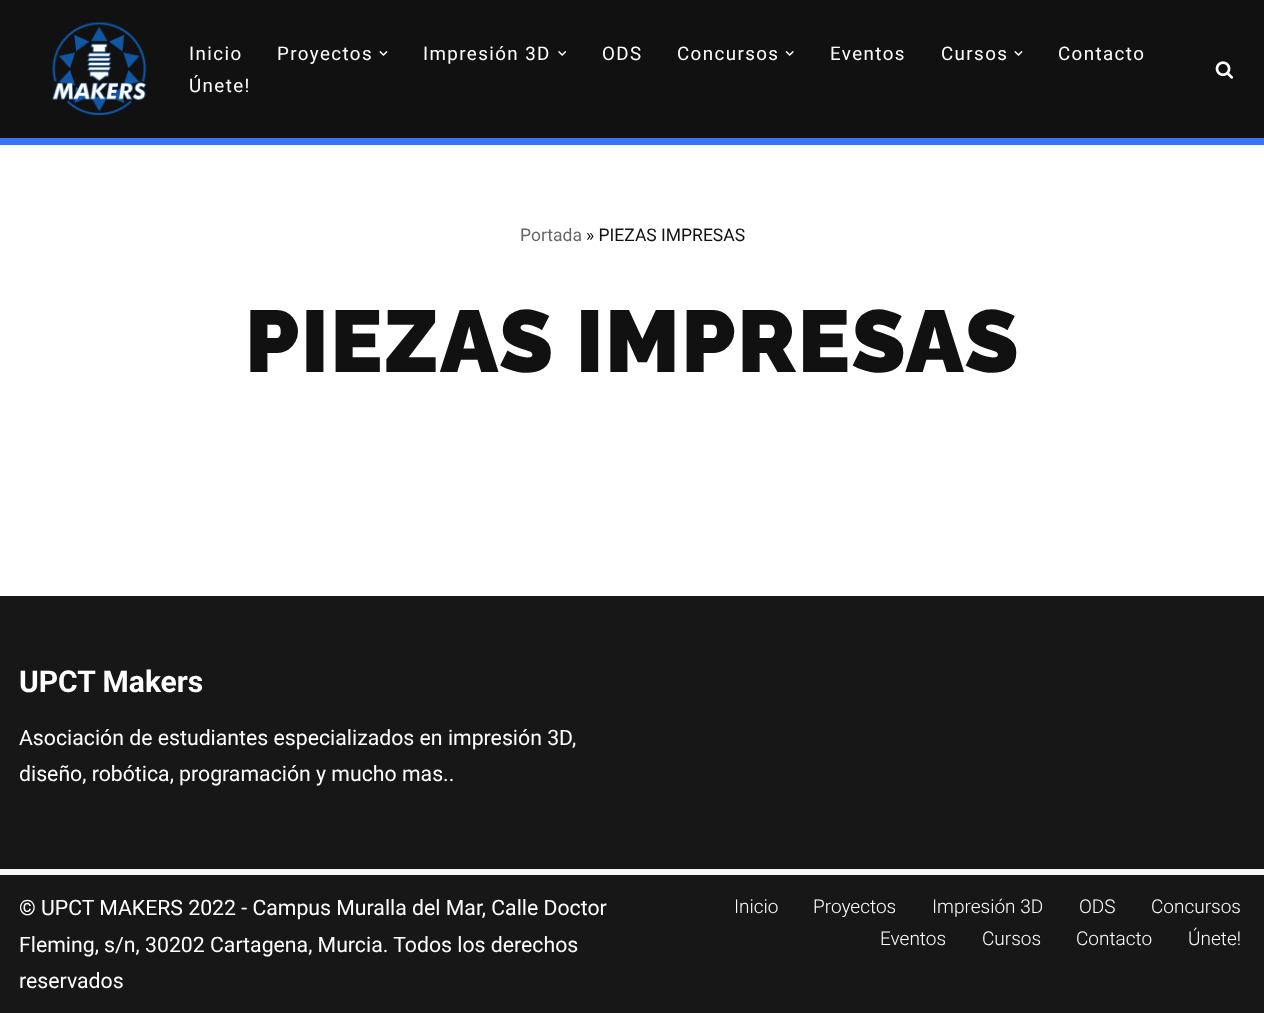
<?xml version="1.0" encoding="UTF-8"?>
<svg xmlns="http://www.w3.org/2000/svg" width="1264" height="1013">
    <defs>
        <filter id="blur1" x="-50%" y="-200%" width="200%" height="500%"><feGaussianBlur stdDeviation="2"/></filter>
    </defs>
    <rect width="100%" height="100%" fill="#FFFFFF"/>
    <rect x="0" y="-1" width="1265" height="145" fill="#000000" fill-opacity="0.1" filter="url(#blur1)"/>
    <rect x="0" y="0" width="1264" height="138" fill="#111111"/>
    <rect x="0" y="138" width="1264" height="7" fill="#3676FF"/>
    <image x="52" y="22" width="95" height="93" href="img_01.png"/>
    <text x="189" y="60" font-family="Roboto" font-size="18.75" letter-spacing="1.4" fill="#FFFFFF">Inicio</text>
    <text x="277" y="60" font-family="Roboto" font-size="18.75" letter-spacing="1.4" fill="#FFFFFF">Proyectos</text>
    <image x="379" y="51" width="9" height="5" href="img_02.png"/>
    <text x="423" y="60" font-family="Roboto" font-size="18.75" letter-spacing="1.4" fill="#FFFFFF">Impresión 3D</text>
    <image x="558" y="51" width="8" height="5" href="img_03.png"/>
    <text x="602" y="60" font-family="Roboto" font-size="18.75" letter-spacing="1.4" fill="#FFFFFF">ODS</text>
    <text x="677" y="60" font-family="Roboto" font-size="18.75" letter-spacing="1.4" fill="#FFFFFF">Concursos</text>
    <image x="785" y="51" width="9" height="5" href="img_04.png"/>
    <text x="830" y="60" font-family="Roboto" font-size="18.75" letter-spacing="1.4" fill="#FFFFFF">Eventos</text>
    <text x="941" y="60" font-family="Roboto" font-size="18.75" letter-spacing="1.4" fill="#FFFFFF">Cursos</text>
    <image x="1014" y="51" width="9" height="5" href="img_02.png"/>
    <text x="1058" y="60" font-family="Roboto" font-size="18.75" letter-spacing="1.4" fill="#FFFFFF">Contacto</text>
    <text x="189" y="92" font-family="Roboto" font-size="18.75" letter-spacing="1.4" fill="#FFFFFF">Únete!</text>
    <image x="1215" y="61" width="19" height="18" href="img_05.png"/>
    <text x="520" y="241" font-family="Roboto" font-size="17.5" fill="#676767">Portada</text>
    <text x="586" y="241" font-family="Roboto" font-size="17.5" fill="#111111">» PIEZAS IMPRESAS</text>
    <text x="245" y="372" font-family="Raleway" font-size="87.5" font-weight="900" letter-spacing="1.5" fill="#111111">PIEZAS IMPRESAS</text>
    <rect x="0" y="596" width="1264" height="273" fill="#181717"/>
    <text x="19" y="692" font-family="Roboto" font-size="30" font-weight="700" fill="#FFFFFF">UPCT Makers</text>
    <text font-family="Roboto" font-size="21.25" fill="#FFFFFF">
        <tspan x="19" y="745">Asociación de estudiantes especializados en impresión 3D,</tspan>
        <tspan x="19" y="781">diseño, robótica, programación y mucho mas..</tspan>
    </text>
    <rect x="0" y="875" width="1264" height="138" fill="#181717"/>
    <rect x="0" y="869" width="1264" height="6" fill="#F8F8F8"/>
    <text font-family="Roboto" font-size="21.25" fill="#FFFFFF">
        <tspan x="19" y="915">© UPCT MAKERS 2022 - Campus Muralla del Mar, Calle Doctor</tspan>
        <tspan x="19" y="952">Fleming, s/n, 30202 Cartagena, Murcia. Todos los derechos</tspan>
        <tspan x="19" y="988">reservados</tspan>
    </text>
    <text x="734" y="913" font-family="Roboto" font-size="19" font-weight="300" fill="#FFFFFF">Inicio</text>
    <text x="813" y="913" font-family="Roboto" font-size="19" font-weight="300" fill="#FFFFFF">Proyectos</text>
    <text x="932" y="913" font-family="Roboto" font-size="19" font-weight="300" fill="#FFFFFF">Impresión 3D</text>
    <text x="1079" y="913" font-family="Roboto" font-size="19" font-weight="300" fill="#FFFFFF">ODS</text>
    <text x="1151" y="913" font-family="Roboto" font-size="19" font-weight="300" fill="#FFFFFF">Concursos</text>
    <text x="880" y="945" font-family="Roboto" font-size="19" font-weight="300" fill="#FFFFFF">Eventos</text>
    <text x="982" y="945" font-family="Roboto" font-size="19" font-weight="300" fill="#FFFFFF">Cursos</text>
    <text x="1076" y="945" font-family="Roboto" font-size="19" font-weight="300" fill="#FFFFFF">Contacto</text>
    <text x="1188" y="945" font-family="Roboto" font-size="19" font-weight="300" fill="#FFFFFF">Únete!</text>
</svg>
